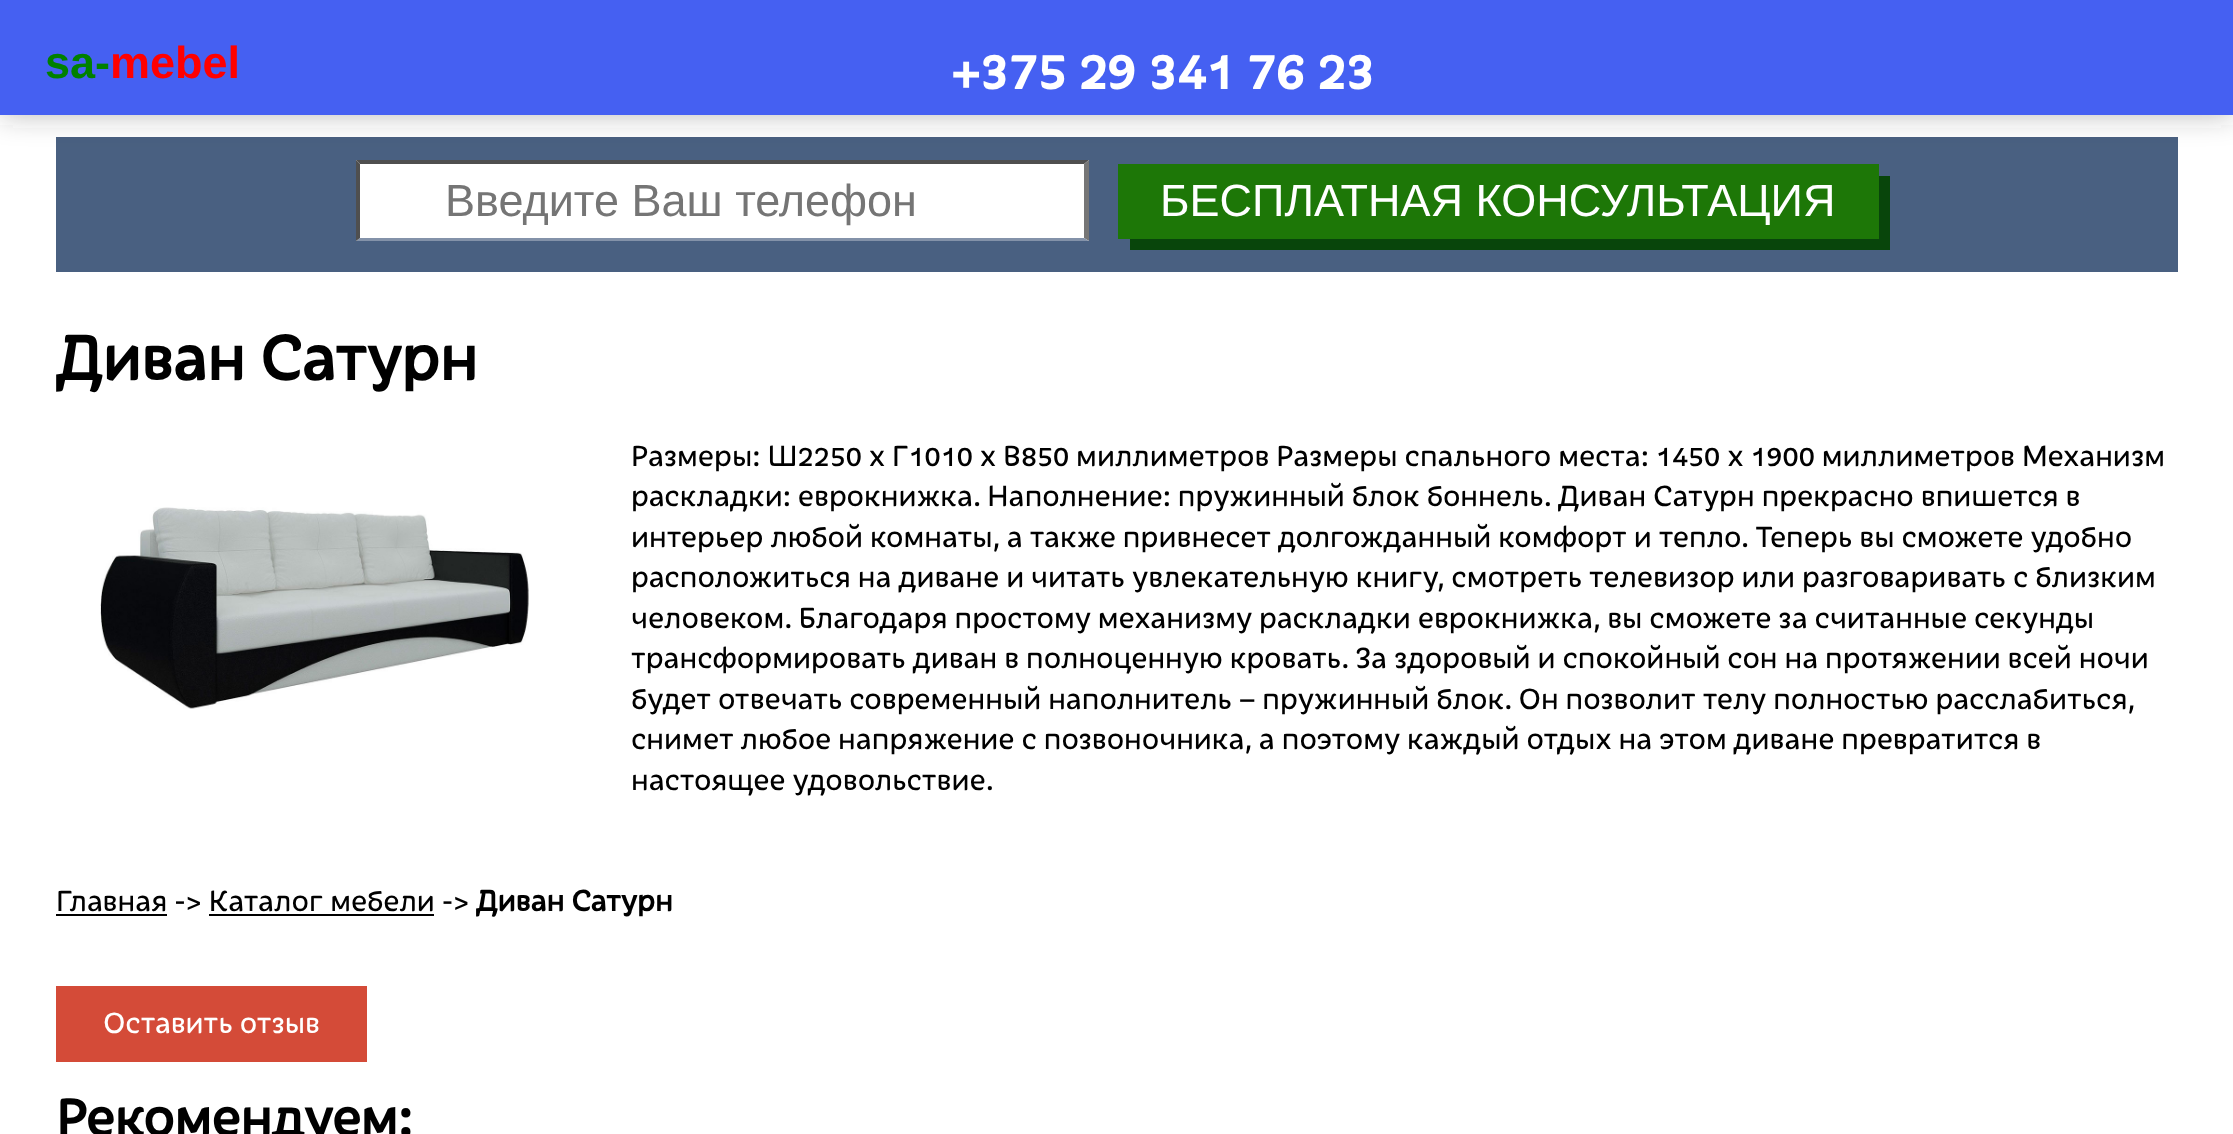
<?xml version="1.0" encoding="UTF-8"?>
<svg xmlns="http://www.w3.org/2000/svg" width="2233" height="1134">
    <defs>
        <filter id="blur1" x="-50%" y="-200%" width="200%" height="500%"><feGaussianBlur stdDeviation="14.5"/></filter>
    </defs>
    <rect width="100%" height="100%" fill="#FFFFFF"/>
    <rect x="56" y="137" width="2122" height="135" fill="#496081"/>
    <rect x="0" y="0" width="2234" height="115" fill="#323232" fill-opacity="0.33" filter="url(#blur1)"/>
    <rect x="0" y="0" width="2233" height="115" fill="#4560F2"/>
    <text x="45" y="78" font-family="Liberation Sans" font-size="45" font-weight="700" fill="#008000">sa-</text>
    <text x="110" y="78" font-family="Liberation Sans" font-size="45" font-weight="700" fill="#FF0000">mebel</text>
    <text x="951" y="89" font-family="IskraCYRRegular" font-size="56.25" font-weight="700" fill="#FFFFFF">+375 29 341 76 23</text>
    <rect x="356" y="160" width="733" height="81" fill="#FFFFFF"/>
    <path d="M 356 160 H 1089 L 1084 164 H 360 Z" fill="#4F4F4F"/>
    <path d="M 1089 160 V 241 L 1084 238 V 164 Z" fill="#767676"/>
    <path d="M 1089 241 H 356 L 360 238 H 1084 Z" fill="#8392A9"/>
    <path d="M 356 241 V 160 L 360 164 V 238 Z" fill="#4F4F4F"/>
    <text x="445" y="216" font-family="Liberation Sans" font-size="45" fill="#757575">Введите Ваш телефон</text>
    <path d="M 1130 238 V 250 H 1890 V 176 H 1879 V 238 Z" fill="#08450B"/>
    <rect x="1118" y="164" width="761" height="75" fill="#1D7707"/>
    <text x="1160" y="216" font-family="Liberation Sans" font-size="45" fill="#FFFFFF">БЕСПЛАТНАЯ КОНСУЛЬТАЦИЯ</text>
    <text x="56" y="380" font-family="IskraCYRRegular" font-size="67.5" font-weight="700" fill="#000000">Диван Сатурн</text>
    <text font-family="IskraCYRRegular" font-size="31.5" fill="#000000">
        <tspan x="631" y="466">Размеры: Ш2250 х Г1010 х В850 миллиметров Размеры спального места: 1450 х 1900 миллиметров Механизм</tspan>
        <tspan x="631" y="506">раскладки: еврокнижка. Наполнение: пружинный блок боннель. Диван Сатурн прекрасно впишется в</tspan>
    </text>
    <image x="100" y="507" width="429" height="202" href="img_01.png"/>
    <text font-family="IskraCYRRegular" font-size="31.5" fill="#000000">
        <tspan x="631" y="547">интерьер любой комнаты, а также привнесет долгожданный комфорт и тепло. Теперь вы сможете удобно</tspan>
        <tspan x="631" y="587">расположиться на диване и читать увлекательную книгу, смотреть телевизор или разговаривать с близким</tspan>
        <tspan x="631" y="628">человеком. Благодаря простому механизму раскладки еврокнижка, вы сможете за считанные секунды</tspan>
        <tspan x="631" y="668">трансформировать диван в полноценную кровать. За здоровый и спокойный сон на протяжении всей ночи</tspan>
        <tspan x="631" y="709">будет отвечать современный наполнитель – пружинный блок. Он позволит телу полностью расслабиться,</tspan>
        <tspan x="631" y="749">снимет любое напряжение с позвоночника, а поэтому каждый отдых на этом диване превратится в</tspan>
        <tspan x="631" y="790">настоящее удовольствие.</tspan>
    </text>
    <text x="56" y="911" font-family="IskraCYRRegular" font-size="31.5" fill="#000000">Главная -&gt; Каталог мебели -&gt;</text>
    <rect x="56" y="914" width="111" height="2" fill="#000000"/>
    <text x="476" y="911" font-family="IskraCYRRegular" font-size="31.5" font-weight="700" fill="#000000">Диван Сатурн</text>
    <rect x="209" y="914" width="225" height="2" fill="#000000"/>
    <rect x="56" y="986" width="311" height="76" fill="#D44B38"/>
    <text x="103" y="1033" font-family="IskraCYRRegular" font-size="31.5" fill="#FFFFFF">Оставить отзыв</text>
    <text x="56" y="1136" font-family="IskraCYRRegular" font-size="56.25" font-weight="700" fill="#000000">Рекомендуем:</text>
</svg>
